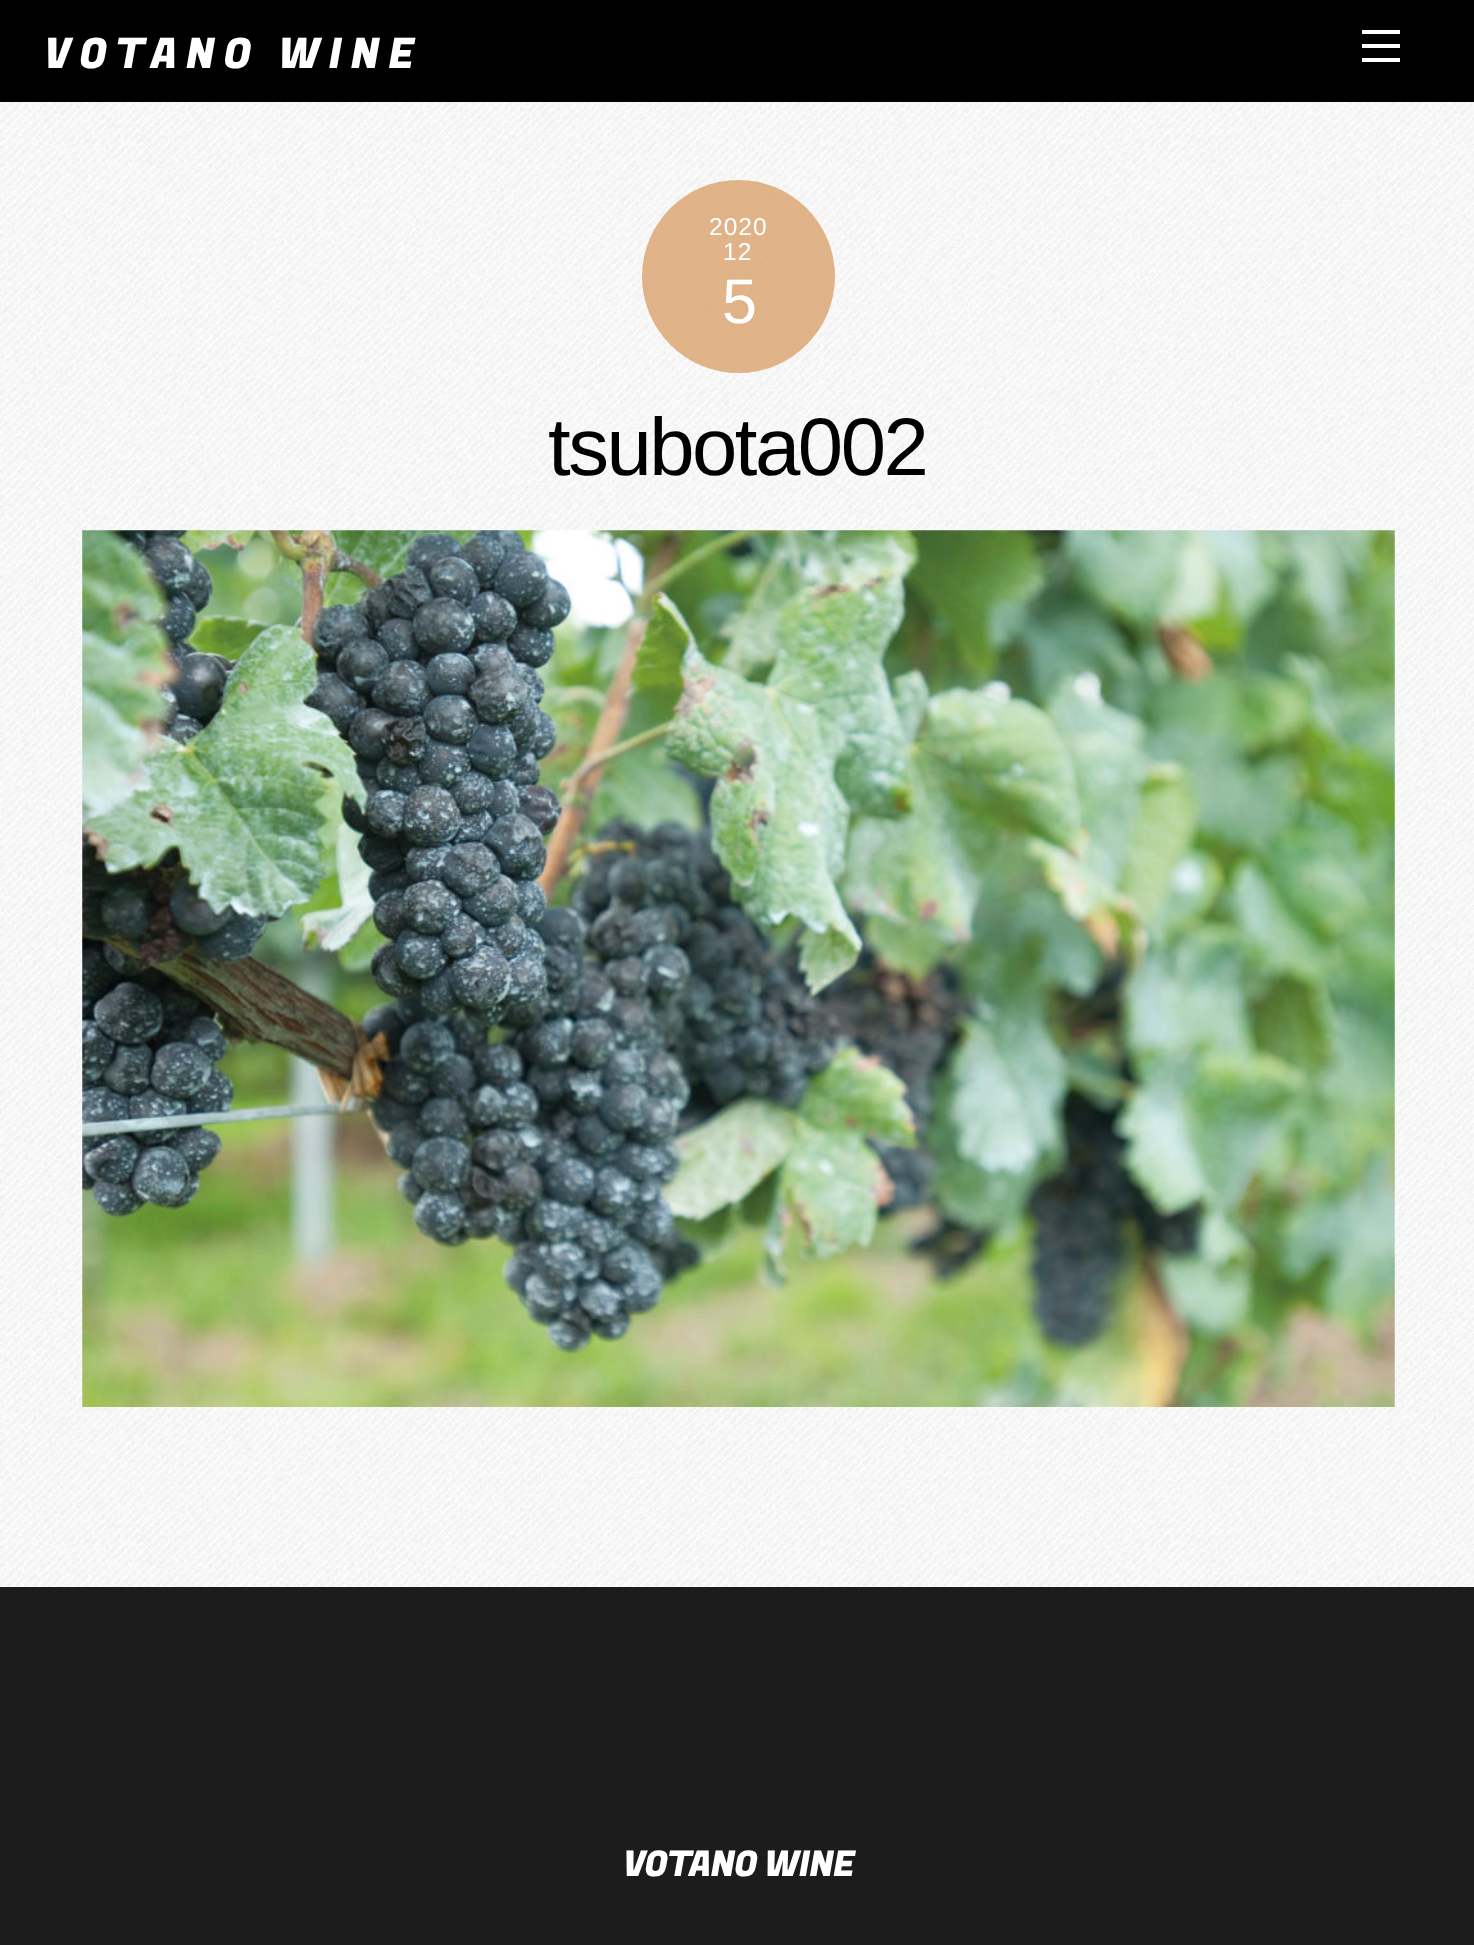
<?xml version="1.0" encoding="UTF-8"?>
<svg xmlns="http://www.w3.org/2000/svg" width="1474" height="1945">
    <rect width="100%" height="100%" fill="#FFFFFF"/>
    <image x="0" y="102" width="1474" height="1485" href="img_01.png"/>
    <rect x="0" y="0" width="1474" height="102" fill="#000000"/>
    <text x="44" y="68" font-family="Fugaz One" font-size="42" letter-spacing="8.4" fill="#FFFFFF">VOTANO WINE</text>
    <rect x="1362" y="58" width="38" height="4" fill="#FFFFFF"/>
    <rect x="1362" y="30" width="38" height="4" fill="#FFFFFF"/>
    <rect x="1362" y="44" width="38" height="4" fill="#FFFFFF"/>
    <circle cx="738.5" cy="276.5" r="96.5" fill="#DAA36C" fill-opacity="0.8"/>
    <text x="709" y="235" font-family="Liberation Sans" font-size="24.5" letter-spacing="1" fill="#FFFFFF">2020</text>
    <text x="723" y="260" font-family="Liberation Sans" font-size="24.5" letter-spacing="1" fill="#FFFFFF">12</text>
    <text x="722" y="323" font-family="Liberation Sans" font-size="63" letter-spacing="-3" fill="#FFFFFF">5</text>
    <text x="548" y="475" font-family="Liberation Sans" font-size="81.5" letter-spacing="-2.5" fill="#000000">tsubota002</text>
    <image x="82" y="530" width="1313" height="877" href="img_02.png"/>
    <rect x="0" y="1587" width="1474" height="358" fill="#1C1C1C"/>
    <text x="623" y="1876" font-family="Fugaz One" font-size="35.5" letter-spacing="-1" fill="#FFFFFF">VOTANO WINE</text>
</svg>
